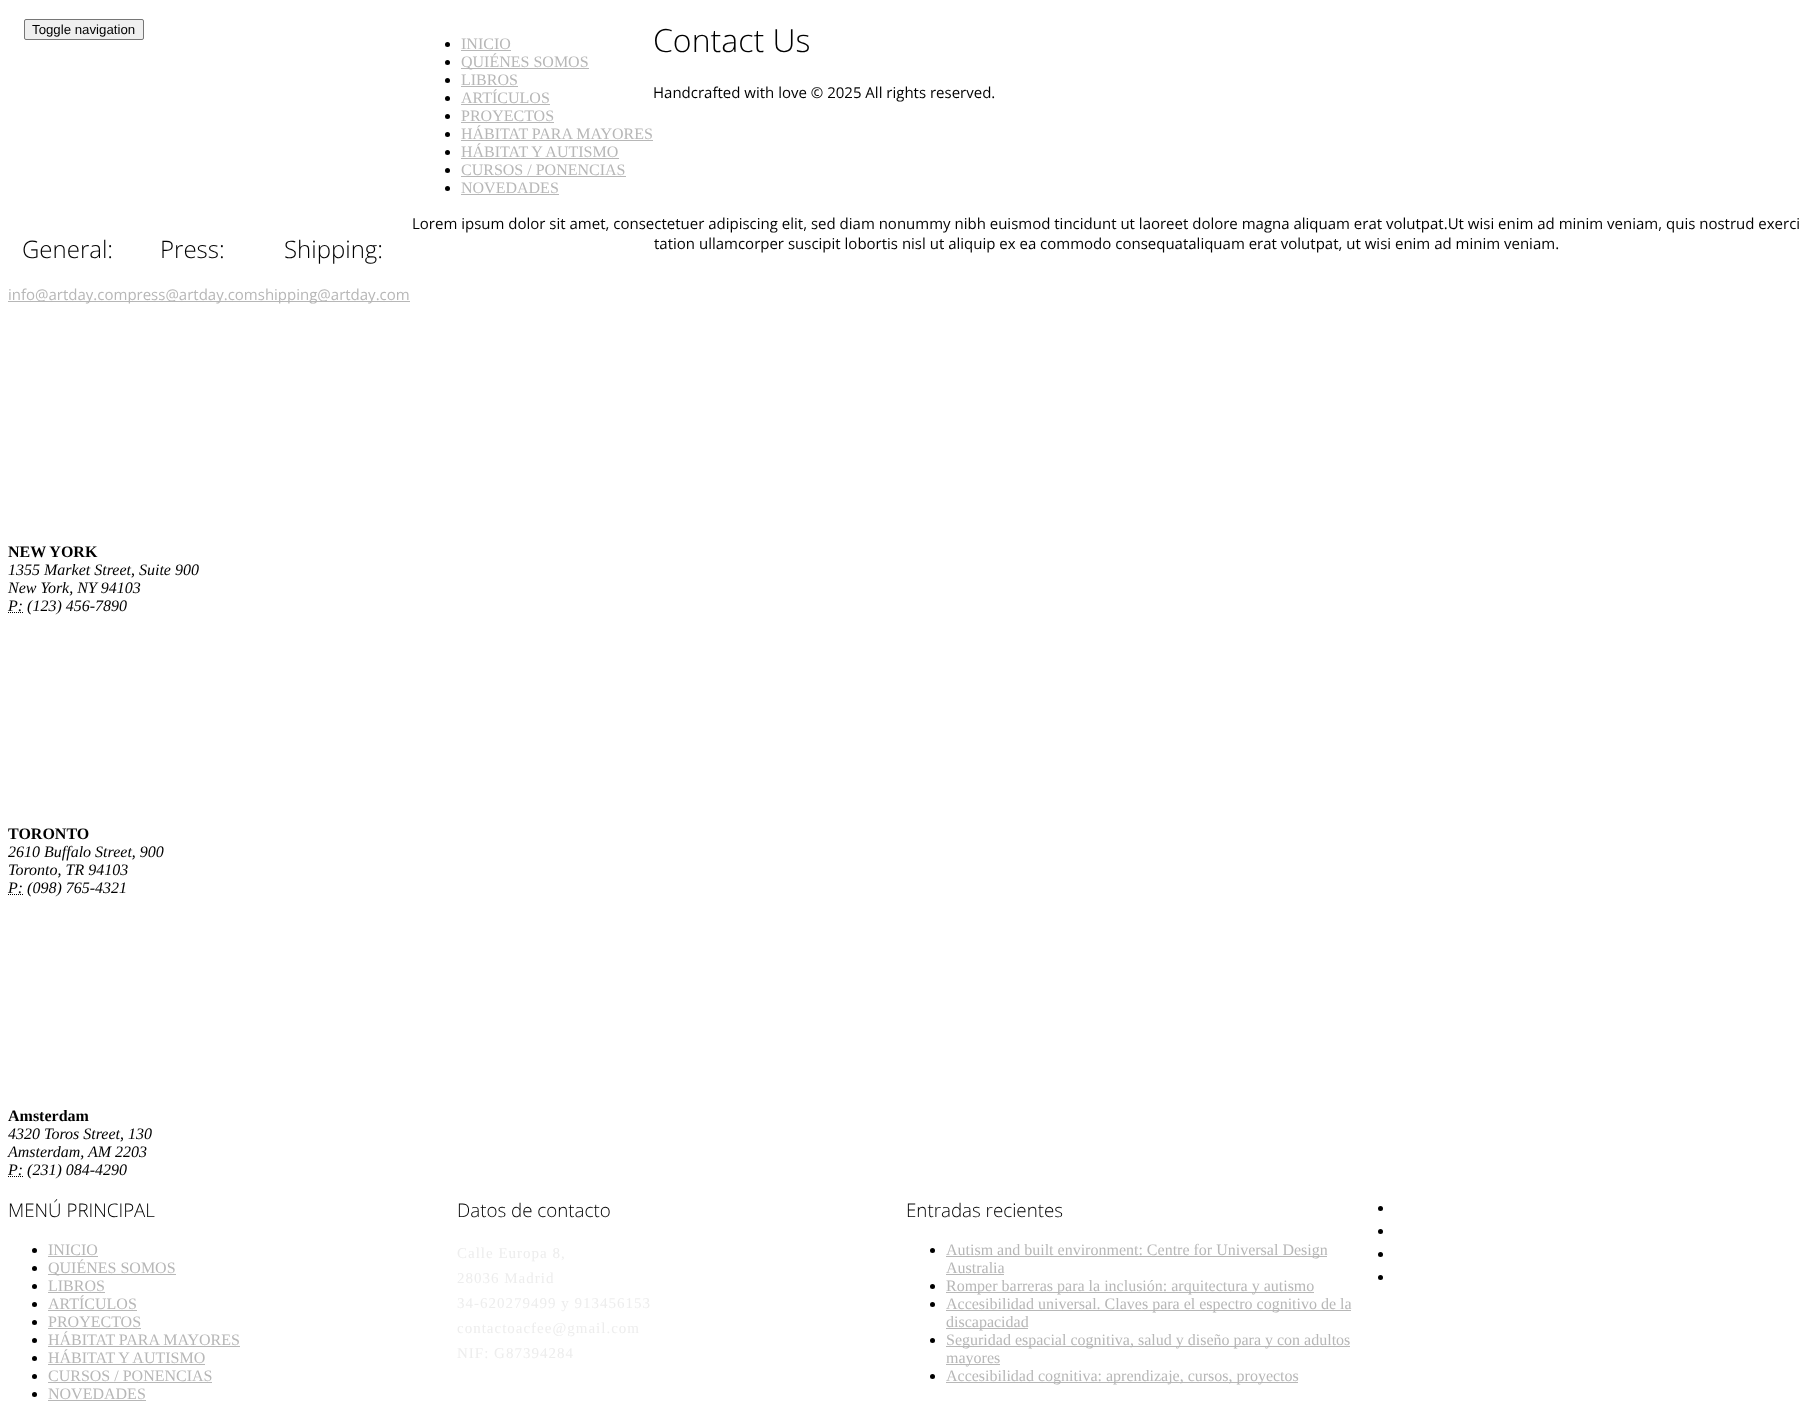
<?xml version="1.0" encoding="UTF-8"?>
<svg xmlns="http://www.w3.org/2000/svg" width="1811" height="1418">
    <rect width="100%" height="100%" fill="#FFFFFF"/>
    <rect x="24.5" y="19.5" width="119" height="20" rx="1.5" fill="#EFEFEF" stroke="#767676"/>
    <text x="32" y="34" font-family="Liberation Sans" font-size="13.25" fill="#000000">Toggle navigation</text>
    <circle cx="447.5" cy="44.5" r="2.5" fill="#000000"/>
    <text x="461" y="49" font-family="Liberation Serif" font-size="16" fill="#B7B7B7">INICIO</text>
    <rect x="461" y="50" width="50" height="1" fill="#B7B7B7"/>
    <circle cx="447.5" cy="62.5" r="2.5" fill="#000000"/>
    <rect x="461" y="68" width="128" height="1" fill="#B7B7B7"/>
    <text x="461" y="67" font-family="Liberation Serif" font-size="16" fill="#B7B7B7">QUIÉNES SOMOS</text>
    <circle cx="447.5" cy="80.5" r="2.5" fill="#000000"/>
    <text x="461" y="85" font-family="Liberation Serif" font-size="16" fill="#B7B7B7">LIBROS</text>
    <rect x="461" y="86" width="57" height="1" fill="#B7B7B7"/>
    <circle cx="447.5" cy="98.5" r="2.5" fill="#000000"/>
    <text x="461" y="103" font-family="Liberation Serif" font-size="16" fill="#B7B7B7">ARTÍCULOS</text>
    <rect x="461" y="104" width="89" height="1" fill="#B7B7B7"/>
    <circle cx="447.5" cy="116.5" r="2.5" fill="#000000"/>
    <text x="461" y="121" font-family="Liberation Serif" font-size="16" fill="#B7B7B7">PROYECTOS</text>
    <rect x="461" y="122" width="93" height="1" fill="#B7B7B7"/>
    <circle cx="447.5" cy="134.5" r="2.5" fill="#000000"/>
    <text x="461" y="139" font-family="Liberation Serif" font-size="16" fill="#B7B7B7">HÁBITAT PARA MAYORES</text>
    <rect x="461" y="140" width="192" height="1" fill="#B7B7B7"/>
    <circle cx="447.5" cy="152.5" r="2.5" fill="#000000"/>
    <text x="461" y="157" font-family="Liberation Serif" font-size="16" fill="#B7B7B7">HÁBITAT Y AUTISMO</text>
    <rect x="461" y="158" width="158" height="1" fill="#B7B7B7"/>
    <circle cx="447.5" cy="170.5" r="2.5" fill="#000000"/>
    <text x="461" y="175" font-family="Liberation Serif" font-size="16" fill="#B7B7B7">CURSOS / PONENCIAS</text>
    <rect x="461" y="176" width="165" height="1" fill="#B7B7B7"/>
    <circle cx="447.5" cy="188.5" r="2.5" fill="#000000"/>
    <text x="461" y="193" font-family="Liberation Serif" font-size="16" fill="#B7B7B7">NOVEDADES</text>
    <rect x="461" y="194" width="98" height="1" fill="#B7B7B7"/>
    <text x="653" y="52" font-family="Open Sans" font-size="32" font-weight="300" fill="#000000">Contact Us</text>
    <text x="653" y="98" font-family="Open Sans" font-size="15" fill="#000000">Handcrafted with love © 2025 All rights reserved.</text>
    <text x="412" y="229" font-family="Open Sans" font-size="15" fill="#000000">Lorem ipsum dolor sit amet, consectetuer adipiscing elit, sed diam nonummy nibh euismod tincidunt ut laoreet dolore magna aliquam erat volutpat.Ut wisi enim ad minim veniam, quis nostrud exerci</text>
    <text x="654" y="249" font-family="Open Sans" font-size="15" fill="#000000">tation ullamcorper suscipit lobortis nisl ut aliquip ex ea commodo consequataliquam erat volutpat, ut wisi enim ad minim veniam.</text>
    <text x="22" y="258" font-family="Open Sans" font-size="24" font-weight="300" fill="#000000">General:</text>
    <rect x="8" y="301" width="402" height="1" fill="#B7B7B7"/>
    <text x="8" y="300" font-family="Open Sans" font-size="15" fill="#B7B7B7">info@artday.compress@artday.comshipping@artday.com</text>
    <text x="160" y="258" font-family="Open Sans" font-size="24" font-weight="300" fill="#000000">Press:</text>
    <text x="284" y="258" font-family="Open Sans" font-size="24" font-weight="300" fill="#000000">Shipping:</text>
    <text x="8" y="557" font-family="Liberation Serif" font-size="16" font-weight="700" fill="#000000">NEW YORK</text>
    <text font-family="Liberation Serif" font-size="16" font-style="italic" fill="#000000">
        <tspan x="8" y="575">1355 Market Street, Suite 900</tspan>
        <tspan x="8" y="593">New York, NY 94103</tspan>
    </text>
    <path d="M 8 612.5 H 23" fill="none" stroke="#000000" stroke-dasharray="1 1"/>
    <text x="8" y="611" font-family="Liberation Serif" font-size="16" font-style="italic" fill="#000000">P: (123) 456-7890</text>
    <text x="8" y="839" font-family="Liberation Serif" font-size="16" font-weight="700" fill="#000000">TORONTO</text>
    <text font-family="Liberation Serif" font-size="16" font-style="italic" fill="#000000">
        <tspan x="8" y="857">2610 Buffalo Street, 900</tspan>
        <tspan x="8" y="875">Toronto, TR 94103</tspan>
    </text>
    <path d="M 8 894.5 H 23" fill="none" stroke="#000000" stroke-dasharray="1 1"/>
    <text x="8" y="893" font-family="Liberation Serif" font-size="16" font-style="italic" fill="#000000">P: (098) 765-4321</text>
    <text x="8" y="1121" font-family="Liberation Serif" font-size="16" font-weight="700" fill="#000000">Amsterdam</text>
    <text font-family="Liberation Serif" font-size="16" font-style="italic" fill="#000000">
        <tspan x="8" y="1139">4320 Toros Street, 130</tspan>
        <tspan x="8" y="1157">Amsterdam, AM 2203</tspan>
    </text>
    <path d="M 8 1176.5 H 23" fill="none" stroke="#000000" stroke-dasharray="1 1"/>
    <text x="8" y="1175" font-family="Liberation Serif" font-size="16" font-style="italic" fill="#000000">P: (231) 084-4290</text>
    <text x="8" y="1217" font-family="Open Sans" font-size="18.75" font-weight="300" fill="#000000">MENÚ PRINCIPAL</text>
    <circle cx="34.5" cy="1250.5" r="2.5" fill="#000000"/>
    <text x="48" y="1255" font-family="Liberation Serif" font-size="16" fill="#B7B7B7">INICIO</text>
    <rect x="48" y="1256" width="50" height="1" fill="#B7B7B7"/>
    <circle cx="34.5" cy="1268.5" r="2.5" fill="#000000"/>
    <rect x="48" y="1274" width="128" height="1" fill="#B7B7B7"/>
    <text x="48" y="1273" font-family="Liberation Serif" font-size="16" fill="#B7B7B7">QUIÉNES SOMOS</text>
    <circle cx="34.5" cy="1286.5" r="2.5" fill="#000000"/>
    <text x="48" y="1291" font-family="Liberation Serif" font-size="16" fill="#B7B7B7">LIBROS</text>
    <rect x="48" y="1292" width="57" height="1" fill="#B7B7B7"/>
    <circle cx="34.5" cy="1304.5" r="2.5" fill="#000000"/>
    <text x="48" y="1309" font-family="Liberation Serif" font-size="16" fill="#B7B7B7">ARTÍCULOS</text>
    <rect x="48" y="1310" width="89" height="1" fill="#B7B7B7"/>
    <circle cx="34.5" cy="1322.5" r="2.5" fill="#000000"/>
    <text x="48" y="1327" font-family="Liberation Serif" font-size="16" fill="#B7B7B7">PROYECTOS</text>
    <rect x="48" y="1328" width="93" height="1" fill="#B7B7B7"/>
    <circle cx="34.5" cy="1340.5" r="2.5" fill="#000000"/>
    <text x="48" y="1345" font-family="Liberation Serif" font-size="16" fill="#B7B7B7">HÁBITAT PARA MAYORES</text>
    <rect x="48" y="1346" width="192" height="1" fill="#B7B7B7"/>
    <circle cx="34.5" cy="1358.5" r="2.5" fill="#000000"/>
    <text x="48" y="1363" font-family="Liberation Serif" font-size="16" fill="#B7B7B7">HÁBITAT Y AUTISMO</text>
    <rect x="48" y="1364" width="157" height="1" fill="#B7B7B7"/>
    <circle cx="34.5" cy="1376.5" r="2.5" fill="#000000"/>
    <text x="48" y="1381" font-family="Liberation Serif" font-size="16" fill="#B7B7B7">CURSOS / PONENCIAS</text>
    <rect x="48" y="1382" width="164" height="1" fill="#B7B7B7"/>
    <circle cx="34.5" cy="1394.5" r="2.5" fill="#000000"/>
    <text x="48" y="1399" font-family="Liberation Serif" font-size="16" fill="#B7B7B7">NOVEDADES</text>
    <rect x="48" y="1400" width="98" height="1" fill="#B7B7B7"/>
    <text x="457" y="1217" font-family="Open Sans" font-size="18.75" font-weight="300" fill="#000000">Datos de contacto</text>
    <text font-family="Liberation Serif" font-size="15" letter-spacing="1" fill="#EDEDED">
        <tspan x="457" y="1258">Calle Europa 8,</tspan>
        <tspan x="457" y="1283">28036 Madrid</tspan>
        <tspan x="457" y="1308">34-620279499 y 913456153</tspan>
        <tspan x="457" y="1333">contactoacfee@gmail.com</tspan>
        <tspan x="457" y="1358">NIF: G87394284</tspan>
    </text>
    <text x="906" y="1217" font-family="Open Sans" font-size="18.75" font-weight="300" fill="#000000">Entradas recientes</text>
    <circle cx="932.5" cy="1250.5" r="2.5" fill="#000000"/>
    <rect x="946" y="1256" width="381" height="1" fill="#B7B7B7"/>
    <text font-family="Liberation Serif" font-size="16" fill="#B7B7B7">
        <tspan x="946" y="1255">Autism and built environment: Centre for Universal Design</tspan>
        <tspan x="946" y="1273">Australia</tspan>
    </text>
    <rect x="946" y="1274" width="58" height="1" fill="#B7B7B7"/>
    <circle cx="932.5" cy="1286.5" r="2.5" fill="#000000"/>
    <rect x="946" y="1292" width="368" height="1" fill="#B7B7B7"/>
    <text x="946" y="1291" font-family="Liberation Serif" font-size="16" fill="#B7B7B7">Romper barreras para la inclusión: arquitectura y autismo</text>
    <circle cx="932.5" cy="1304.5" r="2.5" fill="#000000"/>
    <rect x="946" y="1310" width="405" height="1" fill="#B7B7B7"/>
    <text x="946" y="1309" font-family="Liberation Serif" font-size="16" fill="#B7B7B7">Accesibilidad universal. Claves para el espectro cognitivo de la</text>
    <rect x="946" y="1328" width="82" height="1" fill="#B7B7B7"/>
    <text x="946" y="1327" font-family="Liberation Serif" font-size="16" fill="#B7B7B7">discapacidad</text>
    <circle cx="932.5" cy="1340.5" r="2.5" fill="#000000"/>
    <rect x="946" y="1346" width="404" height="1" fill="#B7B7B7"/>
    <text x="946" y="1345" font-family="Liberation Serif" font-size="16" fill="#B7B7B7">Seguridad espacial cognitiva, salud y diseño para y con adultos</text>
    <rect x="946" y="1364" width="54" height="1" fill="#B7B7B7"/>
    <text x="946" y="1363" font-family="Liberation Serif" font-size="16" fill="#B7B7B7">mayores</text>
    <circle cx="932.5" cy="1376.5" r="2.5" fill="#000000"/>
    <rect x="946" y="1382" width="352" height="1" fill="#B7B7B7"/>
    <text x="946" y="1381" font-family="Liberation Serif" font-size="16" fill="#B7B7B7">Accesibilidad cognitiva: aprendizaje, cursos, proyectos</text>
    <circle cx="1380.5" cy="1208.5" r="2.5" fill="#000000"/>
    <circle cx="1380.5" cy="1231.5" r="2.5" fill="#000000"/>
    <circle cx="1380.5" cy="1254.5" r="2.5" fill="#000000"/>
    <circle cx="1380.5" cy="1277.5" r="2.5" fill="#000000"/>
</svg>
